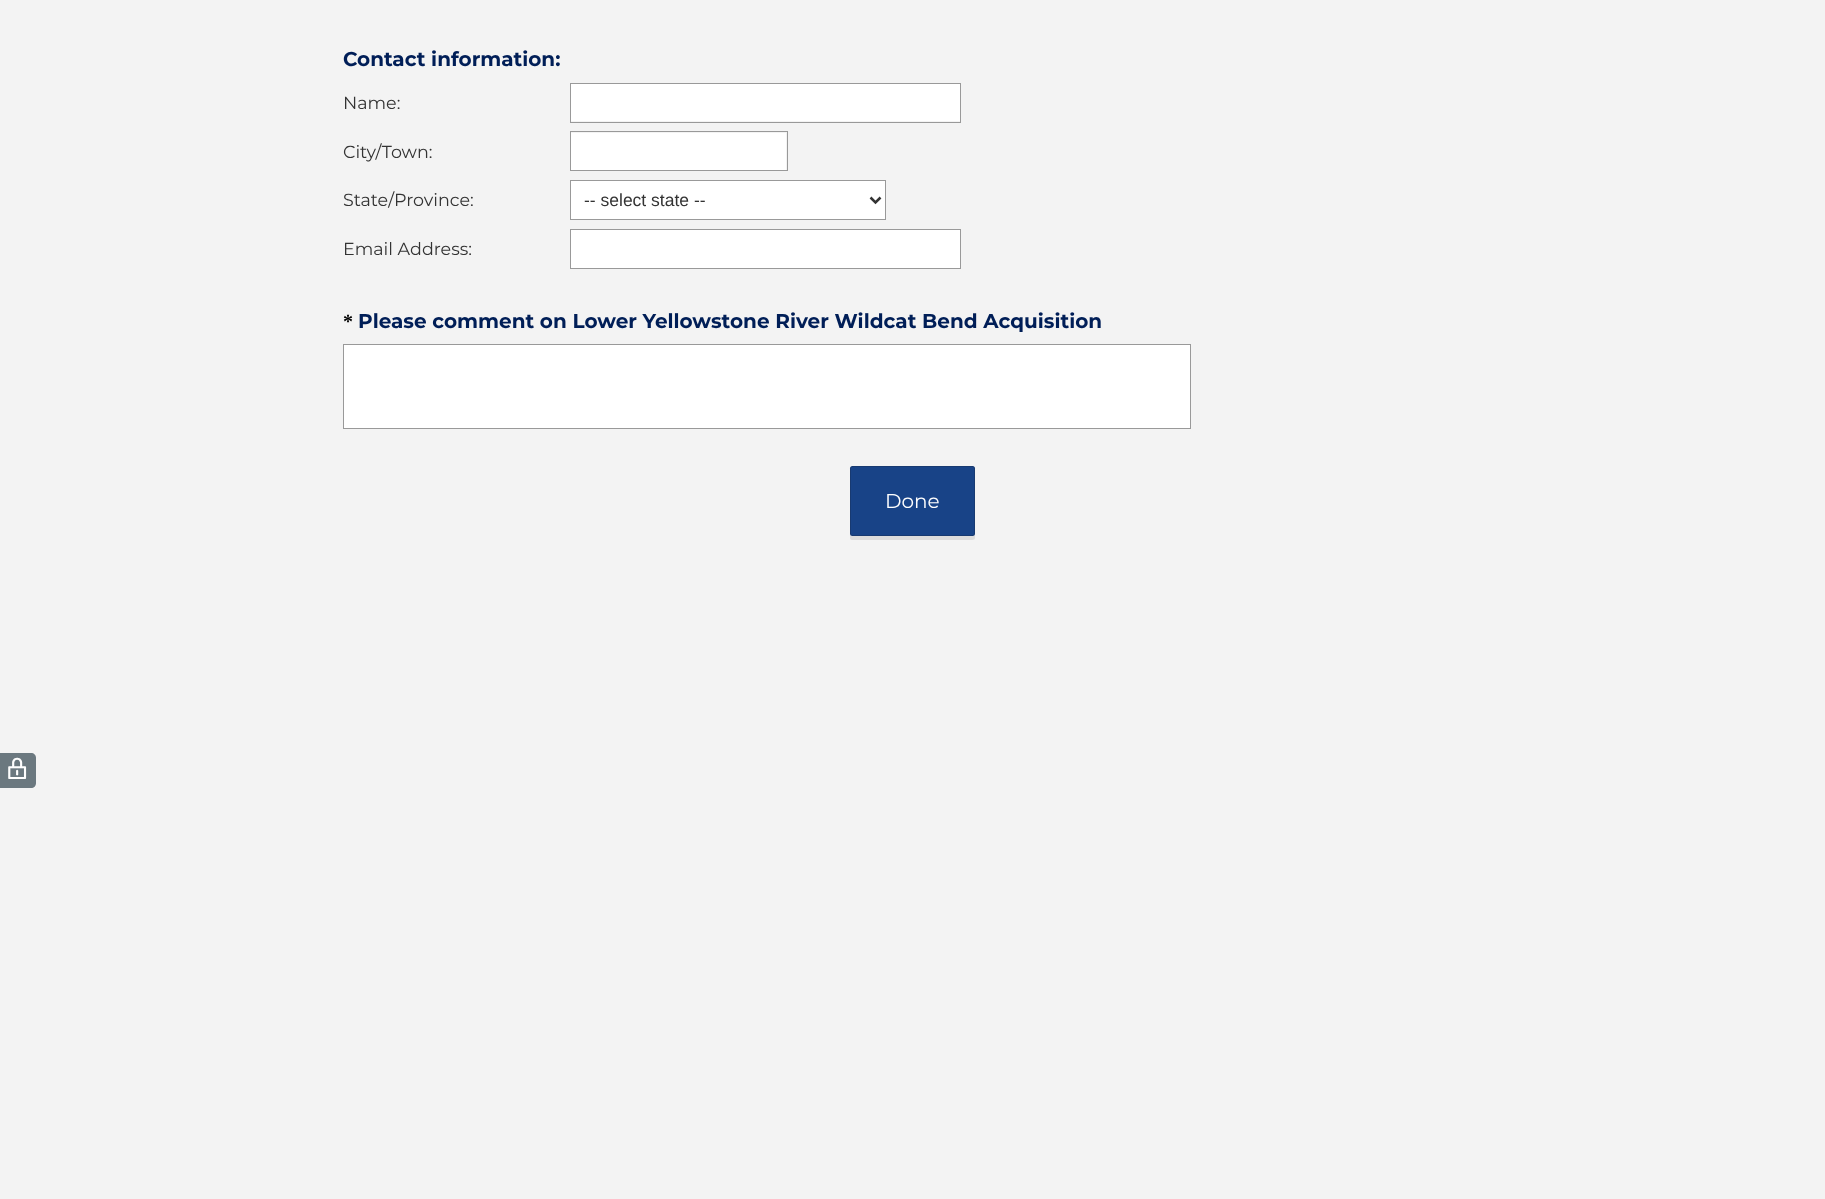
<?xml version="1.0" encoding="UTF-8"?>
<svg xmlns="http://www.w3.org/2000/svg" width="1825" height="1199">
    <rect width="100%" height="100%" fill="#F3F3F3"/>
    <text x="343" y="66" font-family="Montserrat" font-size="20" font-weight="700" fill="#001E57">Contact information:</text>
    <text x="343" y="109" font-family="Montserrat" font-size="17.5" fill="#333333">Name:</text>
    <rect x="571" y="84" width="389" height="37" fill="#FFFFFF"/>
    <rect x="570.5" y="83.5" width="390" height="39" fill="none" stroke="#999999"/>
    <text x="343" y="158" font-family="Montserrat" font-size="17.5" fill="#333333">City/Town:</text>
    <rect x="571" y="133" width="215" height="37" fill="#FFFFFF"/>
    <rect x="570.5" y="131.5" width="217" height="39" fill="none" stroke="#999999"/>
    <text x="343" y="206" font-family="Montserrat" font-size="17.5" fill="#333333">State/Province:</text>
    <rect x="570.5" y="180.5" width="315" height="39" fill="#FFFFFF" stroke="#999999"/>
    <path d="M 870.5 197.5 L 875.5 202.5 L 880.5 197.5" fill="none" stroke="#333333" stroke-width="2.5"/>
    <text x="584" y="206" font-family="Liberation Sans" font-size="17.5" fill="#333333">-- select state --</text>
    <text x="343" y="255" font-family="Montserrat" font-size="17.5" fill="#333333">Email Address:</text>
    <rect x="570.5" y="229.5" width="390" height="39" fill="#FFFFFF" stroke="#999999"/>
    <text x="343" y="328" font-family="Liberation Serif" font-size="20" font-weight="700" fill="#000000">*</text>
    <text x="358" y="328" font-family="Montserrat" font-size="20" font-weight="700" fill="#001E57">Please comment on Lower Yellowstone River Wildcat Bend Acquisition</text>
    <rect x="343.5" y="344.5" width="847" height="84" fill="#FFFFFF" stroke="#999999"/>
    <path d="M 850 534 V 538 C 850 539 851 540 852 540 H 972 C 974 540 975 539 975 538 V 534 C 975 535 974 536 972 536 H 852 C 851 536 850 535 850 534 Z" fill="#DDDDDD"/>
    <rect x="850" y="466" width="125" height="70" rx="2.5" fill="#184387"/>
    <rect x="850.5" y="466.5" width="124" height="69" rx="2" fill="none" stroke="#181818" stroke-opacity="0.2"/>
    <text x="885" y="508" font-family="Montserrat" font-size="20" fill="#FEFEFE">Done</text>
    <path d="M 0 753 H 31 C 34 753 36 755 36 758 V 783 C 36 786 34 788 31 788 H 0 Z" fill="#6B787F"/>
    <text x="6" y="778" font-family="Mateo" font-size="22" fill="#FEFEFE">(</text>
</svg>
